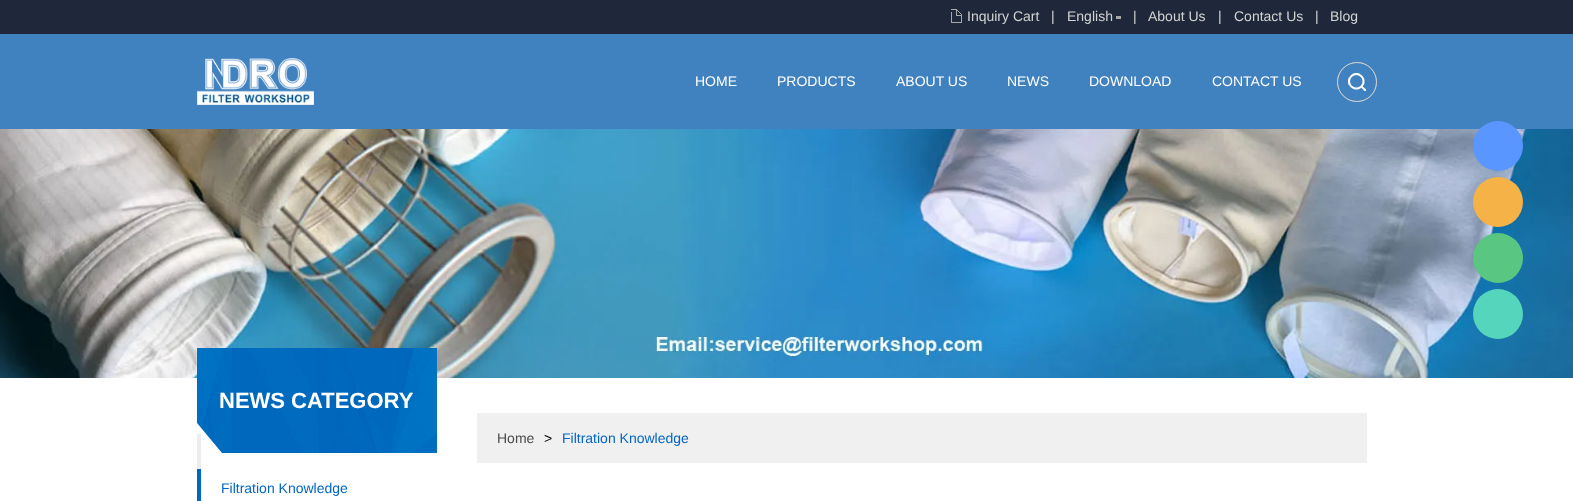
<?xml version="1.0" encoding="UTF-8"?>
<svg xmlns="http://www.w3.org/2000/svg" width="1573" height="501">
    <rect width="100%" height="100%" fill="#FFFFFF"/>
    <rect x="0" y="0" width="1573" height="34" fill="#1E283A"/>
    <image x="951" y="9" width="11" height="14" href="img_01.png"/>
    <text x="967" y="21" font-family="Liberation Sans" font-size="14" fill="#D3D3D3">Inquiry Cart</text>
    <text x="1051" y="21" font-family="Liberation Sans" font-size="14" fill="#D3D3D3">|</text>
    <rect x="1116" y="16" width="5" height="3" fill="#A8A8A8"/>
    <text x="1067" y="21" font-family="Liberation Sans" font-size="14" fill="#D3D3D3">English</text>
    <text x="1133" y="21" font-family="Liberation Sans" font-size="14" fill="#D3D3D3">|</text>
    <text x="1148" y="21" font-family="Liberation Sans" font-size="14" fill="#D3D3D3">About Us</text>
    <text x="1218" y="21" font-family="Liberation Sans" font-size="14" fill="#D3D3D3">|</text>
    <text x="1234" y="21" font-family="Liberation Sans" font-size="14" fill="#D3D3D3">Contact Us</text>
    <text x="1315" y="21" font-family="Liberation Sans" font-size="14" fill="#D3D3D3">|</text>
    <text x="1330" y="21" font-family="Liberation Sans" font-size="14" fill="#D3D3D3">Blog</text>
    <rect x="0" y="34" width="1573" height="95" fill="#4081BF"/>
    <image x="197" y="58" width="117" height="47" href="img_02.png"/>
    <text x="695" y="86" font-family="Liberation Sans" font-size="14" fill="#FFFFFF">HOME</text>
    <text x="777" y="86" font-family="Liberation Sans" font-size="14" fill="#FFFFFF">PRODUCTS</text>
    <text x="896" y="86" font-family="Liberation Sans" font-size="14" fill="#FFFFFF">ABOUT US</text>
    <text x="1007" y="86" font-family="Liberation Sans" font-size="14" fill="#FFFFFF">NEWS</text>
    <text x="1089" y="86" font-family="Liberation Sans" font-size="14" fill="#FFFFFF">DOWNLOAD</text>
    <text x="1212" y="86" font-family="Liberation Sans" font-size="14" fill="#FFFFFF">CONTACT US</text>
    <image x="1348" y="73" width="18" height="18" href="img_03.png"/>
    <circle cx="1357" cy="82" r="19.5" fill="none" stroke="#95B5D3"/>
    <circle cx="1357" cy="82" r="19.5" fill="none" stroke="#CCCCCC"/>
    <image x="1348" y="73" width="18" height="18" href="img_04.png"/>
    <image x="0" y="129" width="1573" height="249" href="img_05.png"/>
    <circle cx="1498" cy="146" r="25" fill="#5996FF"/>
    <circle cx="1498" cy="202" r="25" fill="#F5B246"/>
    <circle cx="1498" cy="258" r="25" fill="#59C682"/>
    <circle cx="1498" cy="314" r="25" fill="#55D5BB"/>
    <rect x="197" y="434" width="4" height="35" fill="#EDEDED"/>
    <image x="197" y="348" width="240" height="105" href="img_06.png"/>
    <text x="219" y="408" font-family="Liberation Sans" font-size="22" font-weight="700" fill="#FFFFFF">NEWS CATEGORY</text>
    <rect x="197" y="469" width="4" height="32" fill="#0267C3"/>
    <text x="221" y="493" font-family="Liberation Sans" font-size="14" fill="#0266C3">Filtration Knowledge</text>
    <rect x="477" y="413" width="890" height="50" fill="#F0F0F0"/>
    <text x="497" y="443" font-family="Liberation Sans" font-size="14" fill="#4B4B4B">Home</text>
    <text x="544" y="443" font-family="Liberation Sans" font-size="14" fill="#000000">&gt;</text>
    <text x="562" y="443" font-family="Liberation Sans" font-size="14" fill="#0266C3">Filtration Knowledge</text>
</svg>
